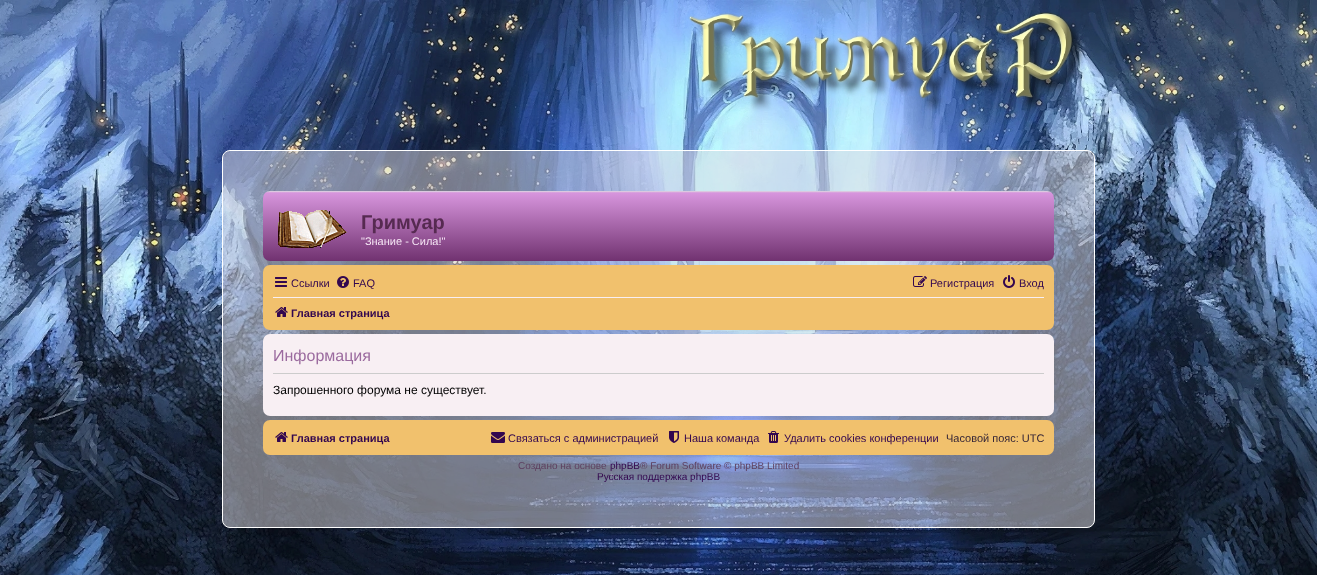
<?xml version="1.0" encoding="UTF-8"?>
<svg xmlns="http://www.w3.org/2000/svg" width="1317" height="575">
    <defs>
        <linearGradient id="g1" gradientUnits="userSpaceOnUse" x1="659" y1="191" x2="659" y2="283"><stop offset="0" stop-color="#DDDCE1"/><stop offset="0.02" stop-color="#D795DD"/><stop offset="1" stop-color="#50124D"/></linearGradient>
    </defs>
    <rect width="100%" height="100%" fill="#FFFFFF"/>
    <image x="0" y="0" width="1317" height="575" href="img_01.png"/>
    <rect x="222.5" y="150.5" width="872" height="377" rx="7.5" fill="#DDDCE1" fill-opacity="0.5" stroke="#FFFFFF"/>
    <rect x="263" y="191" width="791" height="70" rx="7" fill="url(#g1)"/>
    <image x="278" y="210" width="69" height="38" href="img_02.png"/>
    <text x="361" y="229" font-family="Liberation Sans" font-size="20" font-weight="700" fill="#562A51">Гримуар</text>
    <text x="361" y="245" font-family="Liberation Sans" font-size="11" fill="#F6E6F5">"Знание - Сила!"</text>
    <rect x="263" y="265" width="791" height="65" rx="7" fill="#F1C16D"/>
    <image x="275" y="277" width="12" height="10" href="img_03.png"/>
    <text x="291" y="287" font-family="Liberation Sans" font-size="11" fill="#33074F">Ссылки</text>
    <image x="337" y="276" width="12" height="12" href="img_04.png"/>
    <text x="353" y="287" font-family="Liberation Sans" font-size="11" fill="#33074F">FAQ</text>
    <image x="913" y="276" width="14" height="11" href="img_05.png"/>
    <text x="930" y="287" font-family="Liberation Sans" font-size="11" fill="#33074F">Регистрация</text>
    <image x="1003" y="275" width="12" height="13" href="img_06.png"/>
    <text x="1019" y="287" font-family="Liberation Sans" font-size="11" fill="#33074F">Вход</text>
    <rect x="273" y="297" width="771" height="1" fill="#F8EFF3"/>
    <image x="275" y="307" width="13" height="10" href="img_07.png"/>
    <text x="291" y="317" font-family="Liberation Sans" font-size="11" font-weight="700" fill="#33074F">Главная страница</text>
    <rect x="263" y="334" width="791" height="82" rx="7" fill="#F8EFF3"/>
    <rect x="273" y="373" width="771" height="1" fill="#CCCCCC"/>
    <text x="273" y="361" font-family="Liberation Sans" font-size="16" fill="#9B6B9F">Информация</text>
    <text x="273" y="394" font-family="Liberation Sans" font-size="12" fill="#000000">Запрошенного форума не существует.</text>
    <rect x="263" y="420" width="791" height="35" rx="7" fill="#F1C16D"/>
    <image x="275" y="432" width="13" height="10" href="img_07.png"/>
    <text x="291" y="442" font-family="Liberation Sans" font-size="11" font-weight="700" fill="#33074F">Главная страница</text>
    <image x="491" y="432" width="14" height="11" href="img_08.png"/>
    <text x="508" y="442" font-family="Liberation Sans" font-size="11" fill="#33074F">Связаться с администрацией</text>
    <image x="669" y="431" width="10" height="12" href="img_09.png"/>
    <text x="684" y="442" font-family="Liberation Sans" font-size="11" fill="#33074F">Наша команда</text>
    <image x="768" y="431" width="11" height="12" href="img_10.png"/>
    <text x="784" y="442" font-family="Liberation Sans" font-size="11" fill="#33074F">Удалить cookies конференции</text>
    <text x="946" y="442" font-family="Liberation Sans" font-size="11" fill="#352536">Часовой пояс: UTC</text>
    <text x="518" y="469" font-family="Liberation Sans" font-size="10" fill="#5E4161">Создано на основе</text>
    <text x="610" y="469" font-family="Liberation Sans" font-size="10" fill="#33074F">phpBB</text>
    <text x="640" y="469" font-family="Liberation Sans" font-size="10" fill="#5E4161">® Forum Software © phpBB Limited</text>
    <text x="597" y="480" font-family="Liberation Sans" font-size="10" fill="#33074F">Русская поддержка phpBB</text>
</svg>
